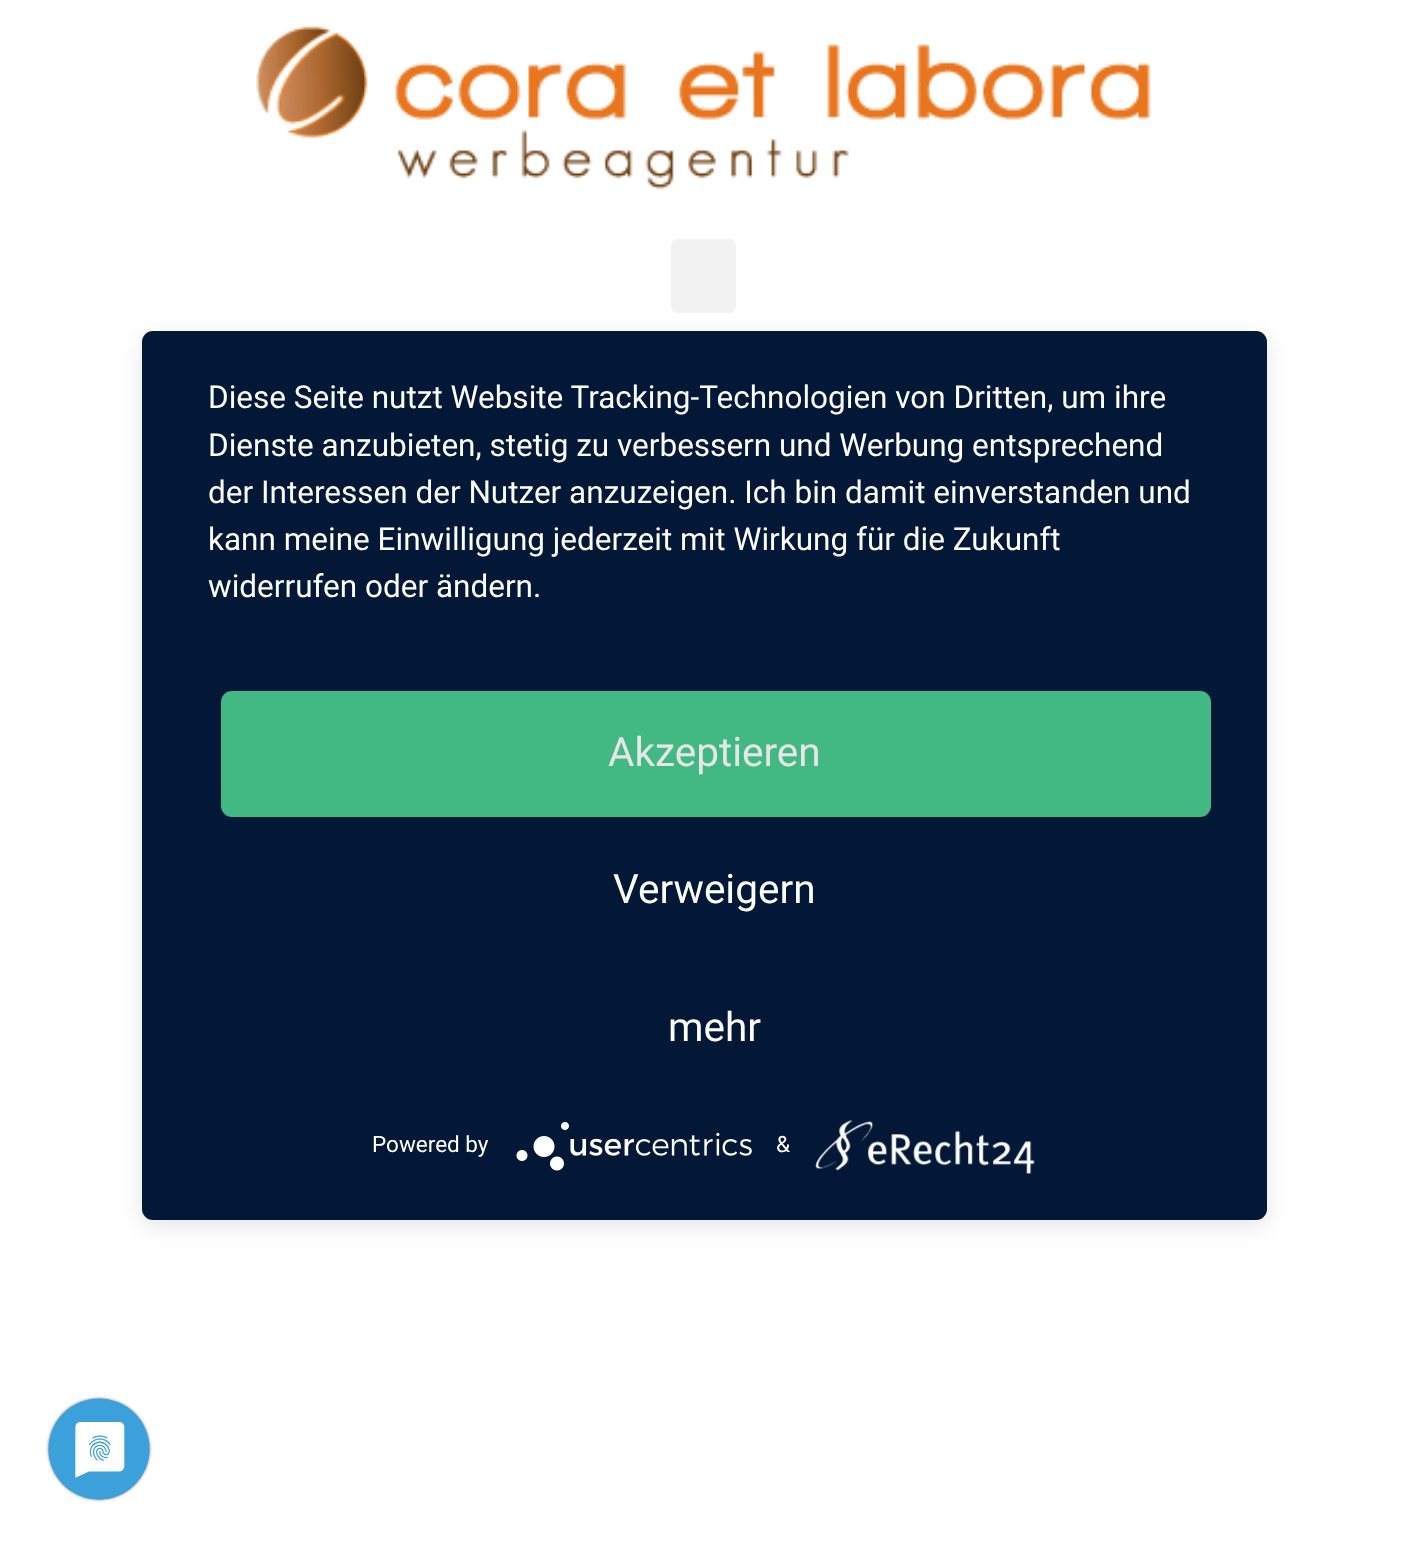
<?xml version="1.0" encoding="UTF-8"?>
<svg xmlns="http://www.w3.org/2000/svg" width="1406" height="1546">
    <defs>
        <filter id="blur1" x="-50%" y="-200%" width="200%" height="500%"><feGaussianBlur stdDeviation="11"/></filter>
        <clipPath id="clip1"><rect x="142" y="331" width="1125" height="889" rx="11"/></clipPath>
        <filter id="blur2" x="-50%" y="-200%" width="200%" height="500%"><feGaussianBlur stdDeviation="40.5"/></filter>
    </defs>
    <rect width="100%" height="100%" fill="#FFFFFF"/>
    <image x="256" y="26" width="895" height="164" href="img_01.png"/>
    <rect x="671" y="239" width="65" height="74" rx="7" fill="#F2F2F2"/>
    <rect x="142" y="338" width="1125" height="888" rx="11" fill="#000000" fill-opacity="0.1" filter="url(#blur1)"/>
    <g clip-path="url(#clip1)">
        <rect x="142" y="344" width="1125" height="889" fill="#000000" fill-opacity="0.3" filter="url(#blur2)"/>
    </g>
    <rect x="142" y="331" width="1125" height="889" rx="11" fill="#021836"/>
    <text font-family="Roboto" font-size="31.5" fill="#FFFFFF">
        <tspan x="208" y="408">Diese Seite nutzt Website Tracking-Technologien von Dritten, um ihre</tspan>
        <tspan x="208" y="456">Dienste anzubieten, stetig zu verbessern und Werbung entsprechend</tspan>
        <tspan x="208" y="503">der Interessen der Nutzer anzuzeigen. Ich bin damit einverstanden und</tspan>
        <tspan x="208" y="550">kann meine Einwilligung jederzeit mit Wirkung für die Zukunft</tspan>
        <tspan x="208" y="597">widerrufen oder ändern.</tspan>
    </text>
    <rect x="221" y="691" width="990" height="126" rx="11" fill="#42B983"/>
    <text x="608" y="766" font-family="Roboto" font-size="40.5" fill="#E6E6E6">Akzeptieren</text>
    <text x="613" y="903" font-family="Roboto" font-size="40.5" fill="#FFFFFF">Verweigern</text>
    <text x="668" y="1041" font-family="Roboto" font-size="40.5" fill="#FFFFFF">mehr</text>
    <text x="372" y="1152" font-family="Roboto" font-size="22.5" fill="#FFFFFF">Powered by</text>
    <image x="516" y="1122" width="236" height="49" href="img_02.png"/>
    <text x="776" y="1152" font-family="Roboto" font-size="22.5" fill="#FFFFFF">&amp;</text>
    <image x="815" y="1120" width="220" height="54" href="img_03.png"/>
    <image x="46" y="1396" width="106" height="106" href="img_04.png"/>
</svg>
